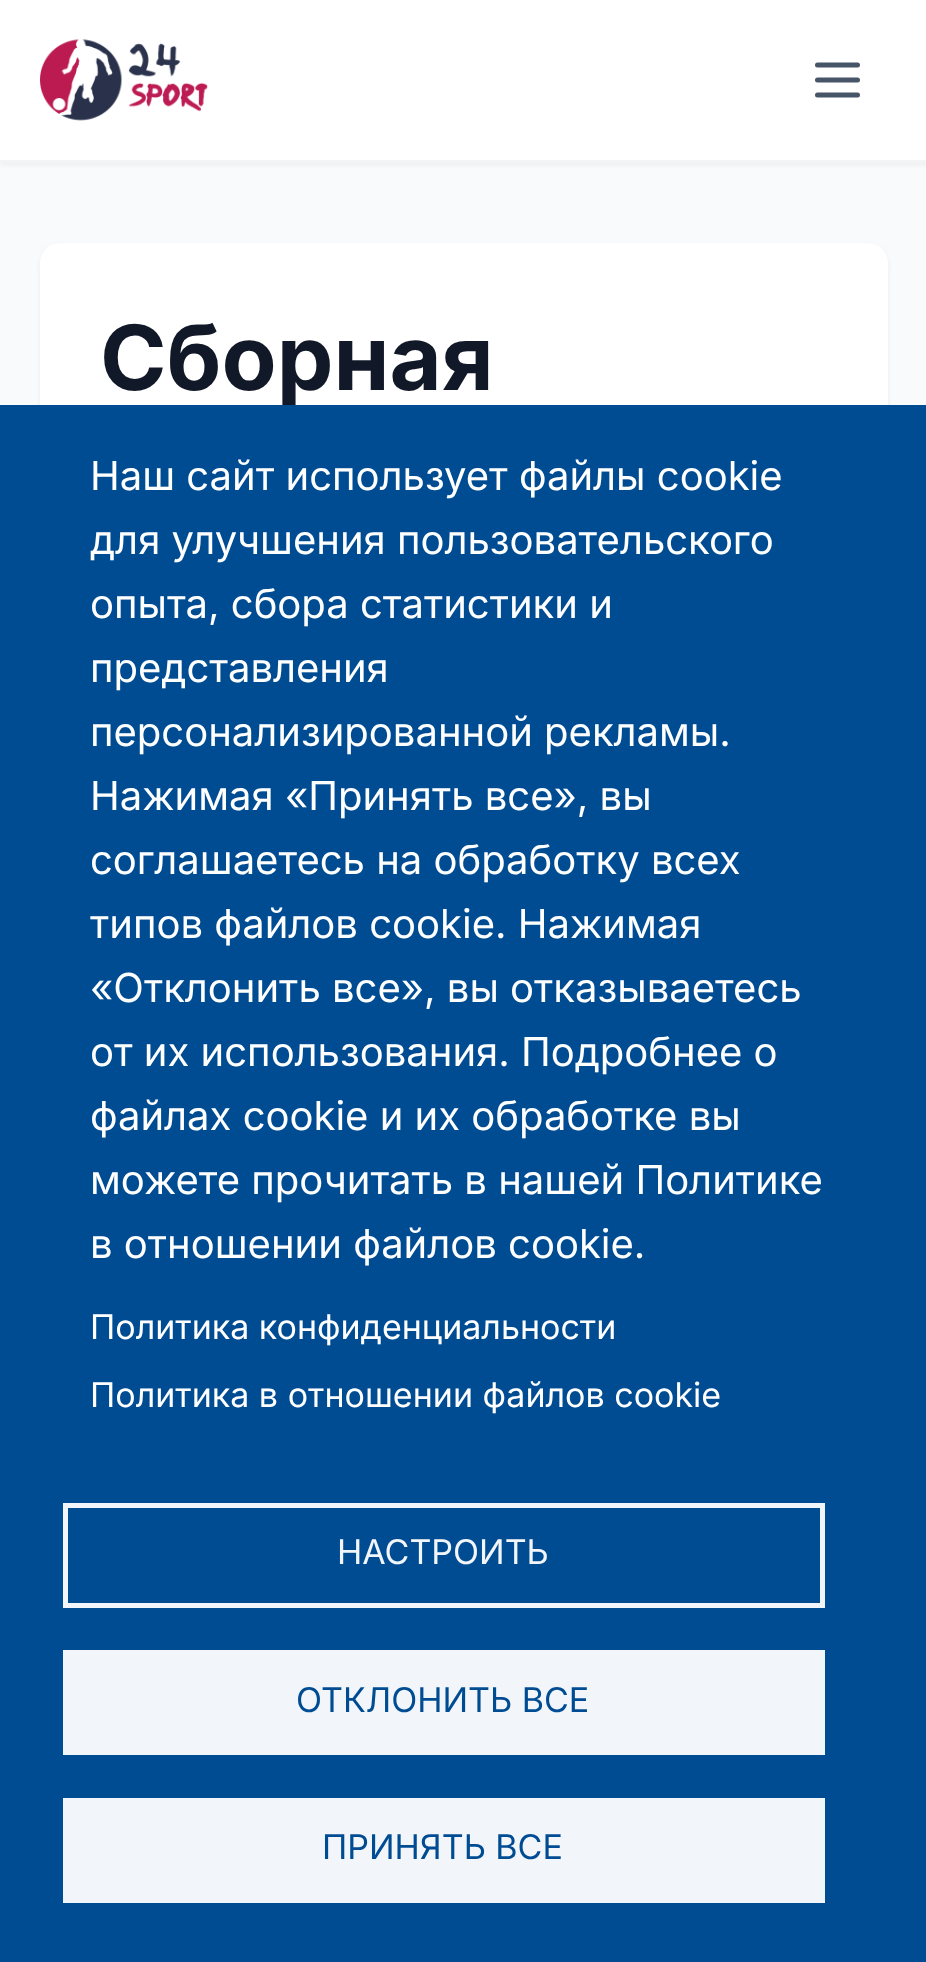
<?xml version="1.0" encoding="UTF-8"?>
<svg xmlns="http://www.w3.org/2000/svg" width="926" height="1962">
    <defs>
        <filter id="blur1" x="-50%" y="-200%" width="200%" height="500%"><feGaussianBlur stdDeviation="2.5"/></filter>
    </defs>
    <rect width="100%" height="100%" fill="#F9FAFB"/>
    <rect x="0" y="3" width="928" height="162" fill="#000000" fill-opacity="0.05" filter="url(#blur1)"/>
    <rect x="0" y="0" width="926" height="160" fill="#FFFFFF"/>
    <rect x="0" y="160" width="926" height="3" fill="#F3F4F6"/>
    <image x="40" y="39" width="168" height="82" href="img_01.png"/>
    <path d="M 817.5 65 H 857.5 M 817.5 80 H 857.5 M 817.5 95 H 857.5" fill="none" stroke="#475569" stroke-width="5" stroke-linecap="round" stroke-linejoin="round"/>
    <rect x="40" y="245" width="848" height="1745" rx="20" fill="#000000" fill-opacity="0.05" filter="url(#blur1)"/>
    <rect x="40" y="243" width="848" height="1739" rx="20" fill="#FFFFFF"/>
    <text x="100" y="390" font-family="Inter" font-size="90" font-weight="700" fill="#111827">Сборная</text>
    <rect x="0" y="405" width="926" height="1557" fill="#004C93"/>
    <text font-family="Inter" font-size="40" fill="#FFFFFF">
        <tspan x="90" y="490">Наш сайт использует файлы cookie</tspan>
        <tspan x="90" y="554">для улучшения пользовательского</tspan>
        <tspan x="90" y="618">опыта, сбора статистики и</tspan>
        <tspan x="90" y="682">представления</tspan>
        <tspan x="90" y="746">персонализированной рекламы.</tspan>
        <tspan x="90" y="810">Нажимая «Принять все», вы</tspan>
        <tspan x="90" y="874">соглашаетесь на обработку всех</tspan>
        <tspan x="90" y="938">типов файлов cookie. Нажимая</tspan>
        <tspan x="90" y="1002">«Отклонить все», вы отказываетесь</tspan>
        <tspan x="90" y="1066">от их использования. Подробнее о</tspan>
        <tspan x="90" y="1130">файлах cookie и их обработке вы</tspan>
        <tspan x="90" y="1194">можете прочитать в нашей Политике</tspan>
        <tspan x="90" y="1258">в отношении файлов cookie.</tspan>
    </text>
    <text x="90" y="1339" font-family="Inter" font-size="34" fill="#FFFFFF">Политика конфиденциальности</text>
    <text x="90" y="1407" font-family="Inter" font-size="34" fill="#FFFFFF">Политика в отношении файлов cookie</text>
    <rect x="65.5" y="1505.5" width="757" height="100" fill="none" stroke="#F2F6FA" stroke-width="5"/>
    <text x="337" y="1564" font-family="Inter" font-size="34" fill="#F2F6FA">НАСТРОИТЬ</text>
    <rect x="63" y="1650" width="762" height="105" fill="#F2F6FA"/>
    <text x="296" y="1712" font-family="Inter" font-size="34" fill="#004C93">ОТКЛОНИТЬ ВСЕ</text>
    <rect x="63" y="1798" width="762" height="105" fill="#F2F6FA"/>
    <text x="322" y="1859" font-family="Inter" font-size="34" fill="#004C93">ПРИНЯТЬ ВСЕ</text>
</svg>
